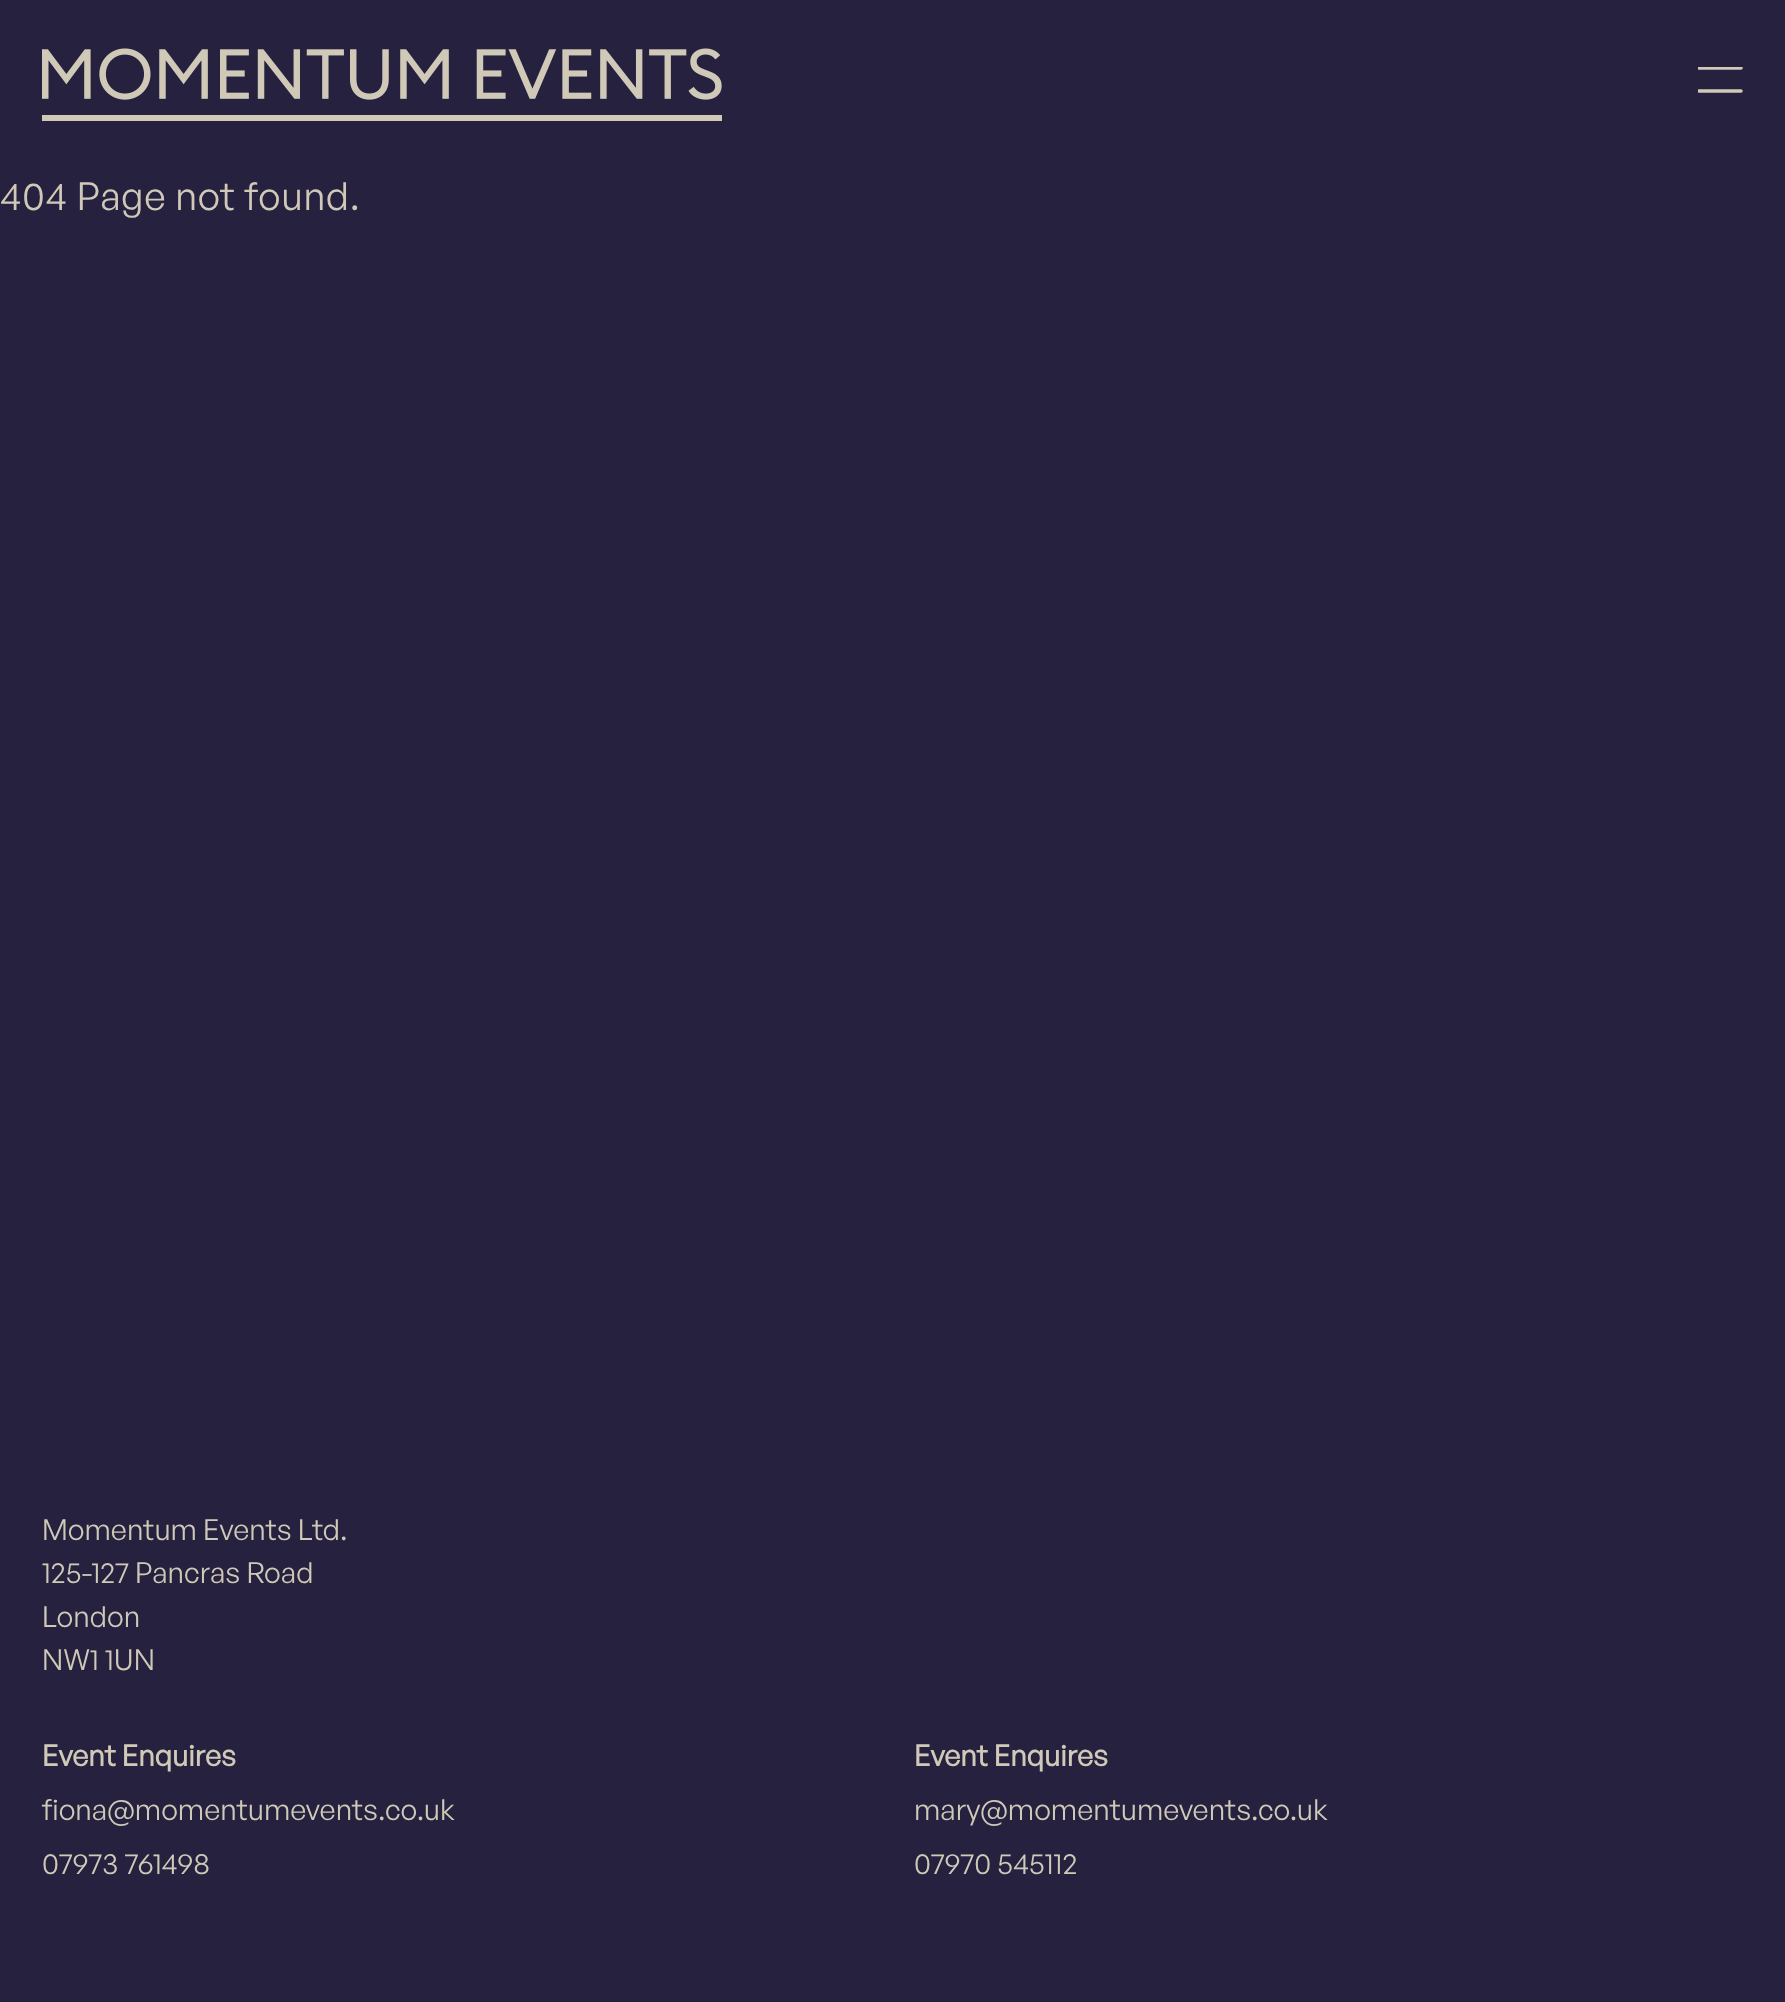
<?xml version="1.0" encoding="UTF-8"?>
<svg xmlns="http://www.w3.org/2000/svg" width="1785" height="2002">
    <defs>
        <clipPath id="clip1"><rect x="1698" y="67" width="45" height="26"/></clipPath>
    </defs>
    <rect width="100%" height="100%" fill="#25213F"/>
    <image x="42" y="48" width="680" height="73" href="img_01.png"/>
    <g clip-path="url(#clip1)">
        <path d="M 1699 68 H 1741 M 1699 91 H 1741" fill="none" stroke="#D0C9B8" stroke-width="3.5" stroke-linecap="round"/>
    </g>
    <text x="0" y="210" font-family="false" font-size="38.5" letter-spacing="0.75" fill="#D0C9B8">404 Page not found.</text>
    <text font-family="false" font-size="29" fill="#D0C9B8">
        <tspan x="42" y="1540">Momentum Events Ltd.</tspan>
        <tspan x="42" y="1583">125-127 Pancras Road</tspan>
        <tspan x="42" y="1627">London</tspan>
        <tspan x="42" y="1670">NW1 1UN</tspan>
    </text>
    <text x="42" y="1766" font-family="false" font-size="29" font-weight="700" fill="#D0C9B8">Event Enquires</text>
    <text font-family="false" font-size="29" fill="#D0C9B8">
        <tspan x="42" y="1820">fiona@momentumevents.co.uk</tspan>
        <tspan x="42" y="1874">07973 761498</tspan>
    </text>
    <text x="914" y="1766" font-family="false" font-size="29" font-weight="700" fill="#D0C9B8">Event Enquires</text>
    <text font-family="false" font-size="29" fill="#D0C9B8">
        <tspan x="914" y="1820">mary@momentumevents.co.uk</tspan>
        <tspan x="914" y="1874">07970 545112</tspan>
    </text>
</svg>
